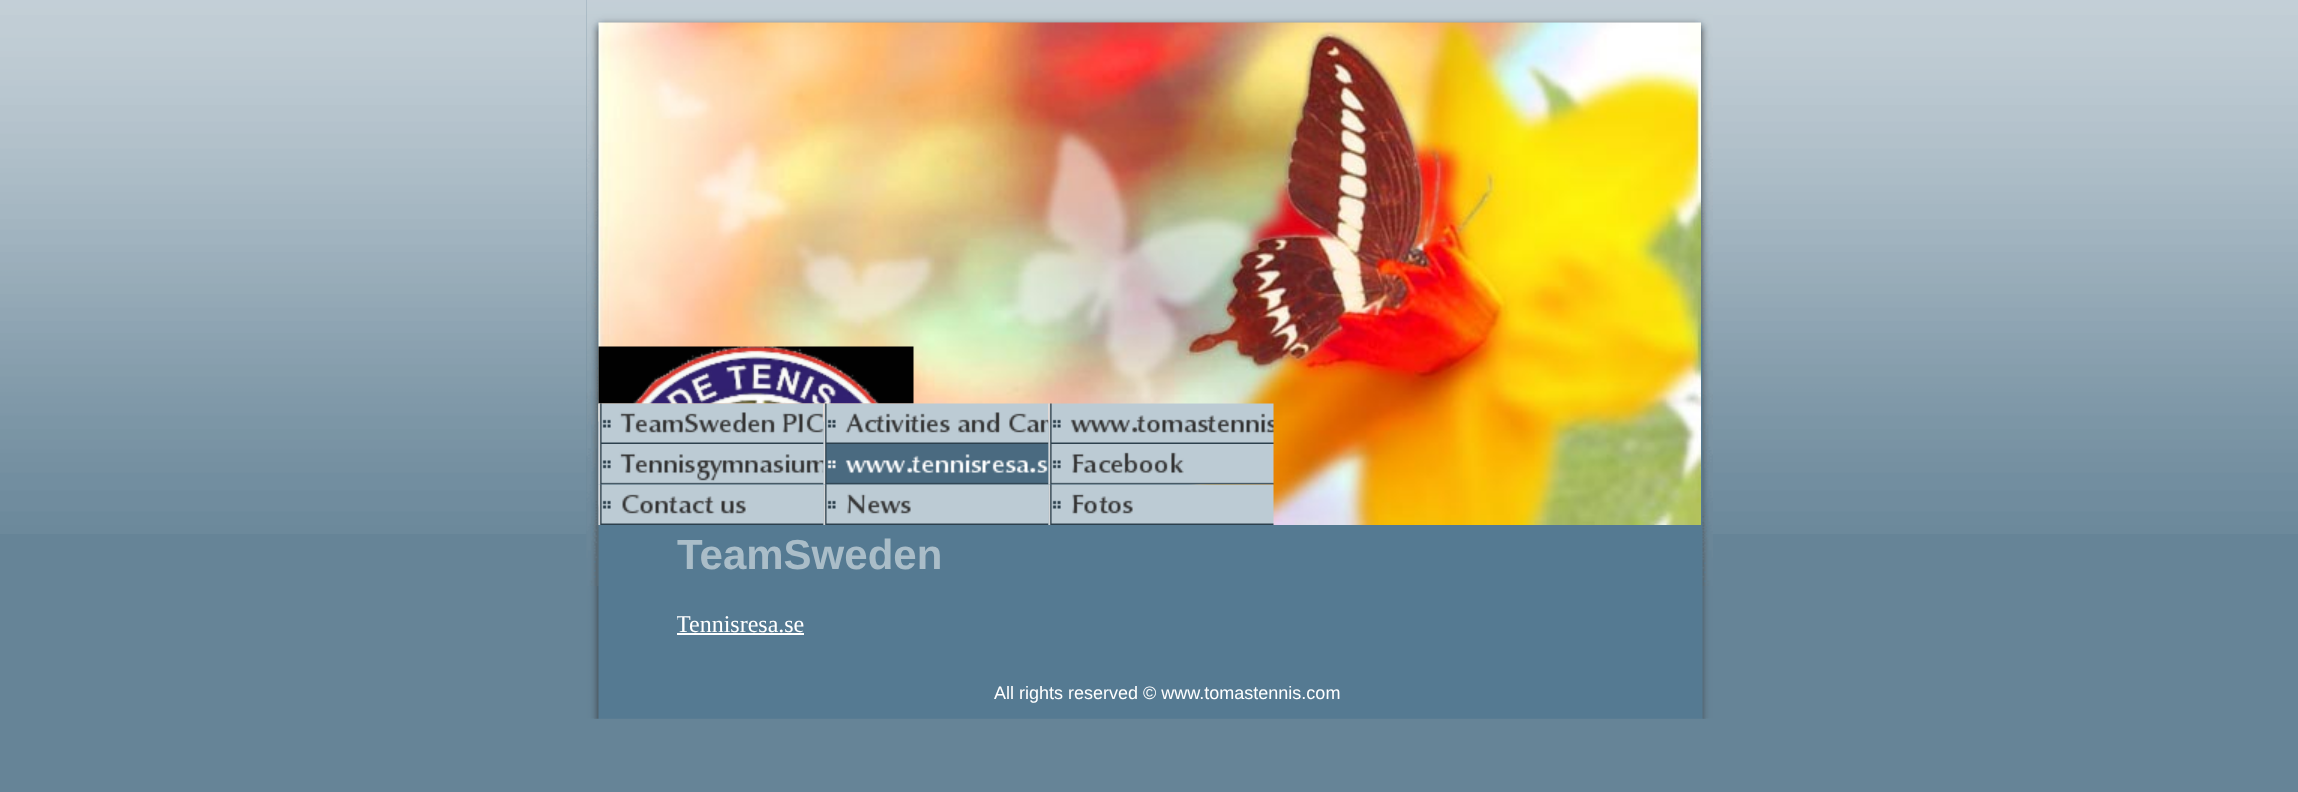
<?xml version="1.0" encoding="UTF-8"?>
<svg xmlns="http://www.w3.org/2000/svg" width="2298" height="792">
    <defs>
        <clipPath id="clip1"><rect x="677" y="603" width="945" height="65"/></clipPath>
    </defs>
    <rect width="100%" height="100%" fill="#668497"/>
    <image x="0" y="0" width="2298" height="534" href="img_01.png"/>
    <image x="586" y="0" width="1127" height="719" href="img_02.png"/>
    <image x="586" y="0" width="1127" height="586" href="img_03.png"/>
    <image x="598" y="22" width="1103" height="503" href="img_04.png"/>
    <image x="598" y="346" width="316" height="58" href="img_05.png"/>
    <image x="598" y="403" width="226" height="41" href="img_06.png"/>
    <image x="823" y="403" width="226" height="41" href="img_07.png"/>
    <image x="1048" y="403" width="226" height="41" href="img_08.png"/>
    <image x="598" y="444" width="226" height="41" href="img_09.png"/>
    <image x="823" y="444" width="226" height="41" href="img_10.png"/>
    <image x="1048" y="444" width="226" height="41" href="img_11.png"/>
    <image x="598" y="484" width="226" height="41" href="img_12.png"/>
    <image x="823" y="484" width="226" height="41" href="img_13.png"/>
    <image x="1048" y="484" width="226" height="41" href="img_14.png"/>
    <text x="677" y="569" font-family="Liberation Sans" font-size="42" font-weight="700" fill="#AABDC8">TeamSweden</text>
    <g clip-path="url(#clip1)">
        <text x="676" y="632" font-family="Liberation Serif" font-size="24" fill="#FFFFFF">Tennisresa.se</text>
    </g>
    <rect x="677" y="633" width="127" height="2" fill="#FFFFFF"/>
    <image x="594" y="718" width="1112" height="1" href="img_15.png"/>
    <text x="994" y="699" font-family="Liberation Sans" font-size="18" fill="#FFFFFF">All rights reserved © www.tomastennis.com</text>
</svg>
